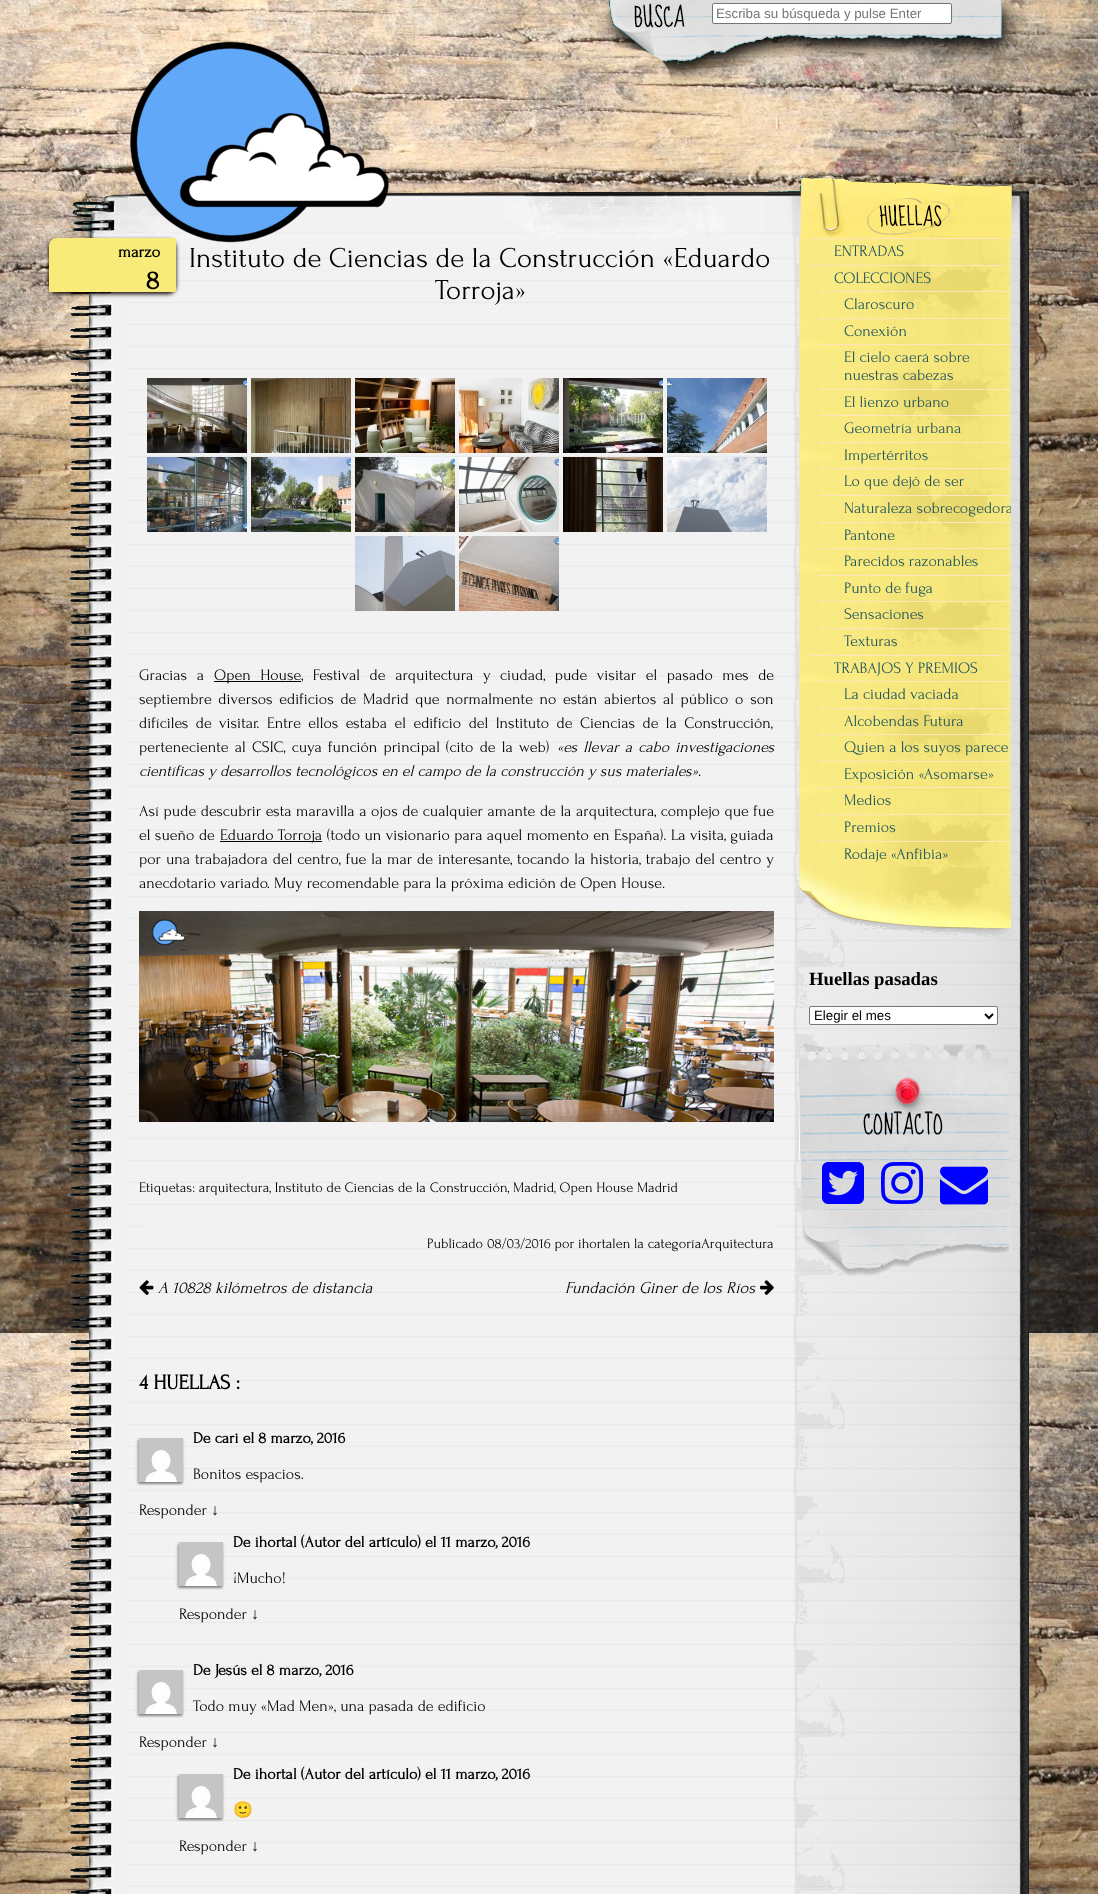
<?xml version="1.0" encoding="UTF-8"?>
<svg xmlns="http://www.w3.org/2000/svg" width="1098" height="1894">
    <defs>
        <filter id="blur1" x="-50%" y="-200%" width="200%" height="500%"><feGaussianBlur stdDeviation="2"/></filter>
        <filter id="blur2" x="-50%" y="-200%" width="200%" height="500%"><feGaussianBlur stdDeviation="1"/></filter>
        <clipPath id="clip1"><rect x="799" y="291" width="212" height="364"/></clipPath>
    </defs>
    <rect width="100%" height="100%" fill="#FFFFFF"/>
    <image x="0" y="0" width="1098" height="1894" href="img_01.png"/>
    <image x="69" y="0" width="960" height="238" href="img_02.png"/>
    <rect x="712.5" y="3.5" width="239" height="20" rx="1.5" fill="#FFFFFF" stroke="#767676"/>
    <text x="716" y="18" font-family="Liberation Sans" font-size="13.3" fill="#757575">Escriba su búsqueda y pulse Enter</text>
    <image x="69" y="238" width="960" height="1656" href="img_04.png"/>
    <image x="130" y="41" width="259" height="202" href="img_03.png"/>
    <rect x="49" y="240" width="127" height="54" rx="8" fill="#110303" filter="url(#blur1)"/>
    <path d="M 57 238 H 175 C 175.5 238 176 238.5 176 239 V 291 C 176 291.5 175.5 292 175 292 H 50 C 49.5 292 49 291.5 49 291 V 246 C 49 241.5 52.5 238 57 238 Z" fill="#F8EB7A"/>
    <text x="118" y="257" font-family="Forum" font-size="16.75" font-weight="700" fill="#000000">marzo</text>
    <text x="146" y="289" font-family="Forum" font-size="27" font-weight="700" fill="#000000">8</text>
    <text x="189" y="267" font-family="Forum" font-size="28.8" fill="#000000">Instituto de Ciencias de la Construcción «Eduardo</text>
    <text x="435" y="299" font-family="Forum" font-size="28.8" fill="#000000">Torroja»</text>
    <image x="147" y="378" width="100" height="75" href="img_05.png"/>
    <image x="251" y="378" width="100" height="75" href="img_06.png"/>
    <image x="355" y="378" width="100" height="75" href="img_07.png"/>
    <image x="459" y="378" width="100" height="75" href="img_08.png"/>
    <image x="563" y="378" width="100" height="75" href="img_09.png"/>
    <image x="667" y="378" width="100" height="75" href="img_10.png"/>
    <image x="147" y="457" width="100" height="75" href="img_11.png"/>
    <image x="251" y="457" width="100" height="75" href="img_12.png"/>
    <image x="355" y="457" width="100" height="75" href="img_13.png"/>
    <image x="459" y="457" width="100" height="75" href="img_14.png"/>
    <image x="563" y="457" width="100" height="75" href="img_15.png"/>
    <image x="667" y="457" width="100" height="75" href="img_16.png"/>
    <image x="355" y="536" width="100" height="75" href="img_17.png"/>
    <image x="459" y="536" width="100" height="75" href="img_18.png"/>
    <text x="139" y="680" word-spacing="5.4" font-family="Forum" font-size="16" fill="#000000">Gracias a</text>
    <rect x="214" y="681" width="87" height="1" fill="#000000"/>
    <text x="214" y="680" word-spacing="5.4" font-family="Forum" font-size="16" fill="#000000">Open House, Festival de arquitectura y ciudad, pude visitar el pasado mes de</text>
    <text font-family="Forum" font-size="16" fill="#000000">
        <tspan x="139" y="704" word-spacing="2.5">septiembre diversos edificios de Madrid que normalmente no están abiertos al público o son</tspan>
        <tspan x="139" y="728" word-spacing="3.25">difíciles de visitar. Entre ellos estaba el edificio del Instituto de Ciencias de la Construcción,</tspan>
        <tspan x="139" y="752" word-spacing="2">perteneciente al CSIC, cuya función principal (cito de la web)</tspan>
    </text>
    <text x="557" y="752" word-spacing="2" font-family="Forum" font-size="16" font-style="italic" fill="#000000">«es llevar a cabo investigaciones</text>
    <text x="139" y="776" font-family="Forum" font-size="16" font-style="italic" fill="#000000">científicas y desarrollos tecnológicos en el campo de la construcción y sus materiales»</text>
    <text x="698" y="776" font-family="Forum" font-size="16" fill="#000000">.</text>
    <text font-family="Forum" font-size="16" fill="#000000">
        <tspan x="139" y="816" word-spacing="0.4">Así pude descubrir esta maravilla a ojos de cualquier amante de la arquitectura, complejo que fue</tspan>
        <tspan x="139" y="840" word-spacing="0.25">el sueño de</tspan>
    </text>
    <rect x="220" y="841" width="102" height="1" fill="#000000"/>
    <text x="220" y="840" font-family="Forum" font-size="16" fill="#000000">Eduardo Torroja</text>
    <text x="327" y="840" word-spacing="0.25" font-family="Forum" font-size="16" fill="#000000">(todo un visionario para aquel momento en España). La visita, guiada</text>
    <text font-family="Forum" font-size="16" fill="#000000">
        <tspan x="139" y="864" word-spacing="0.75">por una trabajadora del centro, fue la mar de interesante, tocando la historia, trabajo del centro y</tspan>
        <tspan x="139" y="888">anecdotario variado. Muy recomendable para la próxima edición de Open House.</tspan>
    </text>
    <image x="139" y="911" width="635" height="211" href="img_19.png"/>
    <text x="139" y="1192" font-family="Forum" font-size="14.4" fill="#000000">Etiquetas: arquitectura, Instituto de Ciencias de la Construcción, Madrid, Open House Madrid</text>
    <rect x="139" y="1226" width="635" height="1" fill="#F2F2F2"/>
    <text x="427" y="1248" font-family="Forum" font-size="14.4" fill="#000000">Publicado 08/03/2016 por ihortalen la categoríaArquitectura</text>
    <image x="139" y="1280" width="15" height="15" href="img_20.png"/>
    <text x="158" y="1293" font-family="Forum" font-size="16.75" font-style="italic" fill="#000000">A 10828 kilómetros de distancia</text>
    <text x="565" y="1293" font-family="Forum" font-size="16.75" font-style="italic" fill="#000000">Fundación Giner de los Ríos</text>
    <image x="760" y="1280" width="14" height="15" href="img_21.png"/>
    <text x="139" y="1389" font-family="Forum" font-size="21" font-weight="700" fill="#000000">4 HUELLAS :</text>
    <rect x="137" y="1440" width="44" height="44" fill="#000000" fill-opacity="0.2" filter="url(#blur2)"/>
    <rect x="139" y="1440" width="44" height="44" fill="#000000" fill-opacity="0.3" filter="url(#blur2)"/>
    <image x="139" y="1438" width="44" height="44" href="img_22.png"/>
    <text x="193" y="1443" font-family="Forum" font-size="16" font-weight="700" fill="#000000">De cari el 8 marzo, 2016</text>
    <text x="193" y="1479" font-family="Forum" font-size="16" fill="#000000">Bonitos espacios.</text>
    <text x="139" y="1515" font-family="Forum" font-size="16" fill="#000000">Responder</text>
    <text x="211" y="1515" font-family="Liberation Sans" font-size="16" fill="#000000">↓</text>
    <rect x="177" y="1544" width="44" height="44" fill="#000000" fill-opacity="0.2" filter="url(#blur2)"/>
    <rect x="179" y="1544" width="44" height="44" fill="#000000" fill-opacity="0.3" filter="url(#blur2)"/>
    <image x="179" y="1542" width="44" height="44" href="img_22.png"/>
    <text x="233" y="1547" font-family="Forum" font-size="16" font-weight="700" fill="#000000">De ihortal</text>
    <text x="301" y="1547" font-family="Forum" font-size="16" font-weight="700" fill="#000000">(Autor del artículo) el 11 marzo, 2016</text>
    <text x="233" y="1583" font-family="Forum" font-size="16" fill="#000000">¡Mucho!</text>
    <text x="179" y="1619" font-family="Forum" font-size="16" fill="#000000">Responder</text>
    <text x="251" y="1619" font-family="Liberation Sans" font-size="16" fill="#000000">↓</text>
    <rect x="137" y="1672" width="44" height="44" fill="#000000" fill-opacity="0.2" filter="url(#blur2)"/>
    <rect x="139" y="1672" width="44" height="44" fill="#000000" fill-opacity="0.3" filter="url(#blur2)"/>
    <image x="139" y="1670" width="44" height="44" href="img_22.png"/>
    <text x="193" y="1675" font-family="Forum" font-size="16" font-weight="700" fill="#000000">De Jesús</text>
    <text x="251" y="1675" font-family="Forum" font-size="16" font-weight="700" fill="#000000">el 8 marzo, 2016</text>
    <text x="193" y="1711" font-family="Forum" font-size="16" fill="#000000">Todo muy «Mad Men», una pasada de edificio</text>
    <text x="139" y="1747" font-family="Forum" font-size="16" fill="#000000">Responder</text>
    <text x="211" y="1747" font-family="Liberation Sans" font-size="16" fill="#000000">↓</text>
    <rect x="177" y="1776" width="44" height="44" fill="#000000" fill-opacity="0.2" filter="url(#blur2)"/>
    <rect x="179" y="1776" width="44" height="44" fill="#000000" fill-opacity="0.3" filter="url(#blur2)"/>
    <image x="179" y="1774" width="44" height="44" href="img_22.png"/>
    <text x="233" y="1779" font-family="Forum" font-size="16" font-weight="700" fill="#000000">De ihortal</text>
    <text x="301" y="1779" font-family="Forum" font-size="16" font-weight="700" fill="#000000">(Autor del artículo) el 11 marzo, 2016</text>
    <text x="233" y="1815" font-family="Noto Color Emoji" font-size="16" fill="#000000">🙂</text>
    <text x="179" y="1851" font-family="Forum" font-size="16" fill="#000000">Responder</text>
    <text x="251" y="1851" font-family="Liberation Sans" font-size="16" fill="#000000">↓</text>
    <image x="799" y="238" width="212" height="629" href="img_23.png"/>
    <rect x="809" y="238" width="195" height="1" fill="#FFE5BE"/>
    <text x="834" y="256" font-family="Forum" font-size="16" fill="#21565E">ENTRADAS</text>
    <rect x="809" y="265" width="195" height="1" fill="#FFE5BE"/>
    <text x="834" y="283" font-family="Forum" font-size="16" fill="#21565E">COLECCIONES</text>
    <rect x="819" y="291" width="192" height="1" fill="#FFE5BE"/>
    <text x="844" y="309" font-family="Forum" font-size="16" fill="#21565E">Claroscuro</text>
    <rect x="819" y="318" width="192" height="1" fill="#FFE5BE"/>
    <text x="844" y="336" font-family="Forum" font-size="16" fill="#21565E">Conexión</text>
    <rect x="819" y="344" width="192" height="1" fill="#FFE5BE"/>
    <text font-family="Forum" font-size="16" fill="#21565E">
        <tspan x="844" y="362">El cielo caerá sobre</tspan>
        <tspan x="844" y="380">nuestras cabezas</tspan>
    </text>
    <rect x="819" y="389" width="192" height="1" fill="#FFE5BE"/>
    <text x="844" y="407" font-family="Forum" font-size="16" fill="#21565E">El lienzo urbano</text>
    <rect x="819" y="415" width="192" height="1" fill="#FFE5BE"/>
    <text x="844" y="433" font-family="Forum" font-size="16" fill="#21565E">Geometría urbana</text>
    <rect x="819" y="442" width="192" height="1" fill="#FFE5BE"/>
    <text x="844" y="460" font-family="Forum" font-size="16" fill="#21565E">Impertérritos</text>
    <rect x="819" y="468" width="192" height="1" fill="#FFE5BE"/>
    <text x="844" y="486" font-family="Forum" font-size="16" fill="#21565E">Lo que dejó de ser</text>
    <rect x="819" y="495" width="192" height="1" fill="#FFE5BE"/>
    <g clip-path="url(#clip1)">
        <text x="844" y="513" font-family="Forum" font-size="16" fill="#21565E">Naturaleza sobrecogedora</text>
    </g>
    <rect x="819" y="522" width="192" height="1" fill="#FFE5BE"/>
    <text x="844" y="540" font-family="Forum" font-size="16" fill="#21565E">Pantone</text>
    <rect x="819" y="548" width="192" height="1" fill="#FFE5BE"/>
    <text x="844" y="566" font-family="Forum" font-size="16" fill="#21565E">Parecidos razonables</text>
    <rect x="819" y="575" width="192" height="1" fill="#FFE5BE"/>
    <text x="844" y="593" font-family="Forum" font-size="16" fill="#21565E">Punto de fuga</text>
    <rect x="819" y="601" width="192" height="1" fill="#FFE5BE"/>
    <text x="844" y="619" font-family="Forum" font-size="16" fill="#21565E">Sensaciones</text>
    <rect x="819" y="628" width="192" height="1" fill="#FFE5BE"/>
    <text x="844" y="646" font-family="Forum" font-size="16" fill="#21565E">Texturas</text>
    <rect x="809" y="655" width="195" height="1" fill="#FFE5BE"/>
    <text x="834" y="673" font-family="Forum" font-size="16" fill="#21565E">TRABAJOS Y PREMIOS</text>
    <rect x="819" y="681" width="192" height="1" fill="#FFE5BE"/>
    <text x="844" y="699" font-family="Forum" font-size="16" fill="#21565E">La ciudad vaciada</text>
    <rect x="819" y="708" width="192" height="1" fill="#FFE5BE"/>
    <text x="844" y="726" font-family="Forum" font-size="16" fill="#21565E">Alcobendas Futura</text>
    <rect x="819" y="734" width="192" height="1" fill="#FFE5BE"/>
    <text x="844" y="752" font-family="Forum" font-size="16" fill="#21565E">Quien a los suyos parece</text>
    <rect x="819" y="761" width="192" height="1" fill="#FFE5BE"/>
    <text x="844" y="779" font-family="Forum" font-size="16" fill="#21565E">Exposición «Asomarse»</text>
    <rect x="819" y="787" width="192" height="1" fill="#FFE5BE"/>
    <text x="844" y="805" font-family="Forum" font-size="16" fill="#21565E">Medios</text>
    <rect x="819" y="814" width="192" height="1" fill="#FFE5BE"/>
    <text x="844" y="832" font-family="Forum" font-size="16" fill="#21565E">Premios</text>
    <rect x="819" y="841" width="192" height="1" fill="#FFE5BE"/>
    <text x="844" y="859" font-family="Forum" font-size="16" fill="#21565E">Rodaje «Anfibia»</text>
    <image x="799" y="867" width="212" height="74" href="img_24.png"/>
    <text x="809" y="985" font-family="Liberation Serif" font-size="18.75" font-weight="700" fill="#000000">Huellas pasadas</text>
    <rect x="809.5" y="1006.5" width="188" height="18" rx="1.5" fill="#FFFFFF" stroke="#767676"/>
    <path d="M 985 1014 L 989 1018 L 993 1014" fill="none" stroke="#000000" stroke-width="2"/>
    <text x="814" y="1020" font-family="Liberation Sans" font-size="13.3" fill="#000000">Elegir el mes</text>
    <image x="799" y="1043" width="210" height="116" href="img_25.png"/>
    <image x="801" y="1159" width="210" height="50" href="img_26.png"/>
    <image x="822" y="1162" width="42" height="42" href="img_27.png"/>
    <image x="881" y="1162" width="42" height="42" href="img_28.png"/>
    <image x="940" y="1166" width="48" height="39" href="img_29.png"/>
    <image x="801" y="1209" width="210" height="67" href="img_30.png"/>
</svg>
